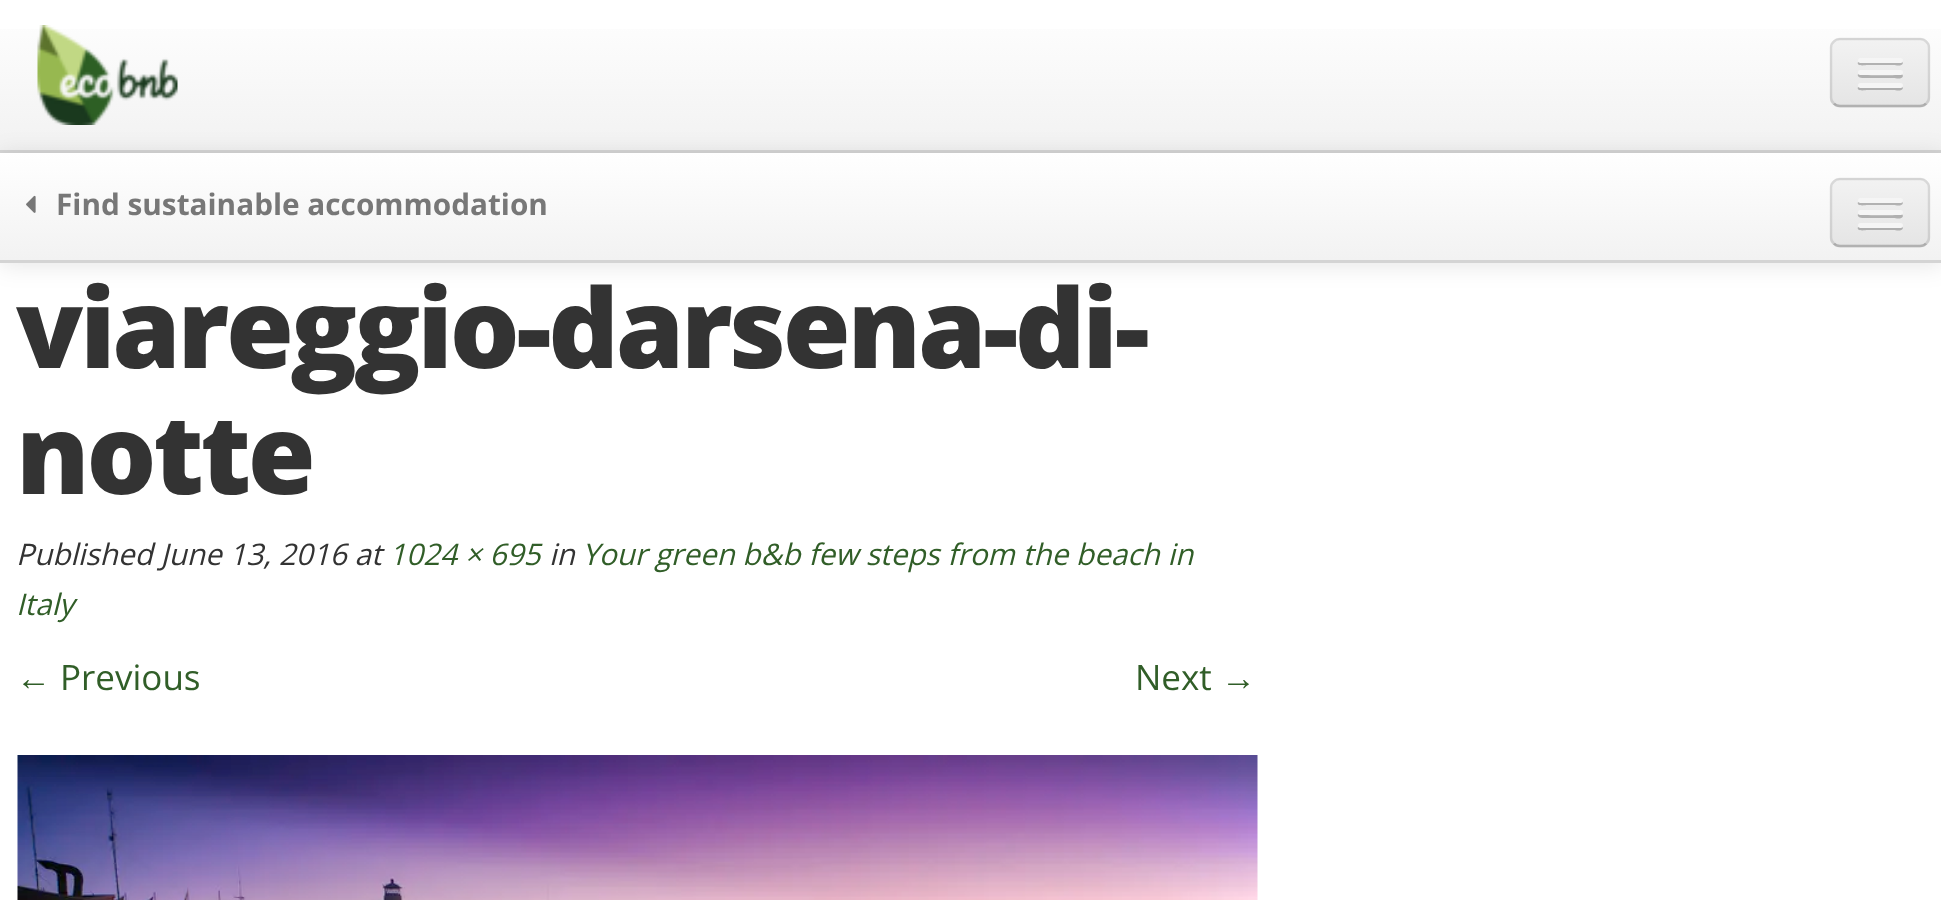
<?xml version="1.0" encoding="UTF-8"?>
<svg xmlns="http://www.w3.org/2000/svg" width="1941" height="900">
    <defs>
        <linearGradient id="g1" gradientUnits="userSpaceOnUse" x1="971" y1="0" x2="971" y2="150"><stop offset="0" stop-color="#FFFFFF"/><stop offset="1" stop-color="#F2F2F2"/></linearGradient>
        <filter id="blur1" x="-50%" y="-200%" width="200%" height="500%"><feGaussianBlur stdDeviation="12.5"/></filter>
        <clipPath id="clip1"><rect x="1830" y="38" width="100" height="70" rx="10"/></clipPath>
        <linearGradient id="g2" gradientUnits="userSpaceOnUse" x1="1880" y1="40" x2="1880" y2="105"><stop offset="0" stop-color="#F2F2F2"/><stop offset="1" stop-color="#E5E5E5"/></linearGradient>
        <linearGradient id="g3" gradientUnits="userSpaceOnUse" x1="971" y1="152" x2="971" y2="260"><stop offset="0" stop-color="#FFFFFF"/><stop offset="1" stop-color="#F2F2F2"/></linearGradient>
        <clipPath id="clip2"><rect x="1830" y="178" width="100" height="70" rx="10"/></clipPath>
        <linearGradient id="g4" gradientUnits="userSpaceOnUse" x1="1880" y1="180" x2="1880" y2="245"><stop offset="0" stop-color="#F2F2F2"/><stop offset="1" stop-color="#E5E5E5"/></linearGradient>
    </defs>
    <rect width="100%" height="100%" fill="#FFFFFF"/>
    <rect x="0" y="29" width="1941" height="121" fill="url(#g1)"/>
    <rect x="0" y="150" width="1941" height="3" fill="#D4D4D4"/>
    <rect x="0" y="155" width="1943" height="110" fill="#000000" fill-opacity="0.1" filter="url(#blur1)"/>
    <image x="37" y="25" width="141" height="100" href="img_01.png"/>
    <rect x="1830" y="38" width="100" height="70" rx="10" fill="#EDEDED"/>
    <g clip-path="url(#clip1)">
        <rect x="1830" y="40" width="100" height="65" fill="url(#g2)"/>
    </g>
    <path d="M 1926 103.5 C 1924.5 105.5 1922.5 106 1920 106 H 1840 C 1837.5 106 1835.5 105.5 1834 103.5" fill="none" stroke="#000000" stroke-opacity="0.25" stroke-width="2.5"/>
    <path d="M 1834 103.5 C 1832 102 1831 100 1831 97.5 V 47.5 C 1831 45 1832 43 1834 41.5 C 1835.5 39.5 1837.5 39 1840 39 H 1920 C 1922.5 39 1924.5 39.5 1926 41.5 C 1928 43 1929 45 1929 47.5 V 97.5 C 1929 100 1928 102 1926 103.5" fill="none" stroke="#000000" stroke-opacity="0.1" stroke-width="2.5"/>
    <path d="M 1858 62 C 1856 67 1866 65 1867 65 H 1894 C 1895 65 1902 67 1903 63 L 1902 61 L 1900 62 H 1860 Z" fill="#B2B2B2"/>
    <rect x="1858" y="58" width="45" height="5" rx="2.5" fill="#F5F5F5"/>
    <path d="M 1858 74 C 1856 79 1867 78 1867 78 H 1894 C 1895 78 1902 80 1903 76 L 1902 74 L 1900 75 C 1897 75 1860 76 1858 74 Z" fill="#B0B0B0"/>
    <rect x="1858" y="70" width="45" height="5" rx="2.5" fill="#F5F5F5"/>
    <path d="M 1858 87 C 1856 92 1866 90 1867 90 H 1894 C 1895 90 1902 92 1903 88 L 1902 86 L 1900 87 H 1860 Z" fill="#AEAEAE"/>
    <rect x="1858" y="83" width="45" height="5" rx="2.5" fill="#F5F5F5"/>
    <rect x="0" y="153" width="1941" height="107" fill="url(#g3)"/>
    <rect x="0" y="260" width="1941" height="3" fill="#D4D4D4"/>
    <image x="26" y="195" width="10" height="18" href="img_02.png"/>
    <text x="56" y="215" font-family="Open Sans" font-size="29.75" font-weight="700" fill="#777777">Find sustainable accommodation</text>
    <rect x="1830" y="178" width="100" height="70" rx="10" fill="#EDEDED"/>
    <g clip-path="url(#clip2)">
        <rect x="1830" y="180" width="100" height="65" fill="url(#g4)"/>
    </g>
    <path d="M 1926 243.5 C 1924.5 245.5 1922.5 246 1920 246 H 1840 C 1837.5 246 1835.5 245.5 1834 243.5" fill="none" stroke="#000000" stroke-opacity="0.25" stroke-width="2.5"/>
    <path d="M 1834 243.5 C 1832 242 1831 240 1831 237.5 V 187.5 C 1831 185 1832 183 1834 181.5 C 1835.5 179.5 1837.5 179 1840 179 H 1920 C 1922.5 179 1924.5 179.5 1926 181.5 C 1928 183 1929 185 1929 187.5 V 237.5 C 1929 240 1928 242 1926 243.5" fill="none" stroke="#000000" stroke-opacity="0.1" stroke-width="2.5"/>
    <path d="M 1858 202 C 1856 207 1866 205 1867 205 H 1894 C 1895 205 1902 207 1903 203 L 1902 201 L 1900 202 H 1860 Z" fill="#B2B2B2"/>
    <rect x="1858" y="198" width="45" height="5" rx="2.5" fill="#F5F5F5"/>
    <path d="M 1858 214 C 1856 219 1867 218 1867 218 H 1894 C 1895 218 1902 220 1903 216 L 1902 214 L 1900 215 C 1897 215 1860 216 1858 214 Z" fill="#B0B0B0"/>
    <rect x="1858" y="210" width="45" height="5" rx="2.5" fill="#F5F5F5"/>
    <path d="M 1858 227 C 1856 232 1866 230 1867 230 H 1894 C 1895 230 1902 232 1903 228 L 1902 226 L 1900 227 H 1860 Z" fill="#AEAEAE"/>
    <rect x="1858" y="223" width="45" height="5" rx="2.5" fill="#F5F5F5"/>
    <text font-family="Open Sans" font-size="110" font-weight="800" letter-spacing="-3.3" fill="#333333">
        <tspan x="16" y="368">viareggio-darsena-di-</tspan>
        <tspan x="16" y="494">notte</tspan>
    </text>
    <text x="16" y="565" font-family="Open Sans" font-size="29.75" font-style="italic" fill="#333333">Published June 13, 2016 at</text>
    <text x="389" y="565" font-family="Open Sans" font-size="29.75" font-style="italic" fill="#315E28">1024 × 695</text>
    <text x="549" y="565" font-family="Open Sans" font-size="29.75" font-style="italic" fill="#333333">in</text>
    <text x="582" y="565" font-family="Open Sans" font-size="29.75" font-style="italic" fill="#315E28">Your green b&amp;b few steps from the beach in</text>
    <text x="16" y="615" font-family="Open Sans" font-size="29.75" font-style="italic" fill="#315E28">Italy</text>
    <text x="16" y="690" font-family="Liberation Sans" font-size="35" fill="#315E28">←</text>
    <text x="60" y="690" font-family="Open Sans" font-size="35" fill="#315E28">Previous</text>
    <text x="1135" y="690" font-family="Open Sans" font-size="35" fill="#315E28">Next</text>
    <text x="1221" y="690" font-family="Liberation Sans" font-size="35" fill="#315E28">→</text>
    <image x="17" y="755" width="1241" height="145" href="img_03.png"/>
</svg>
